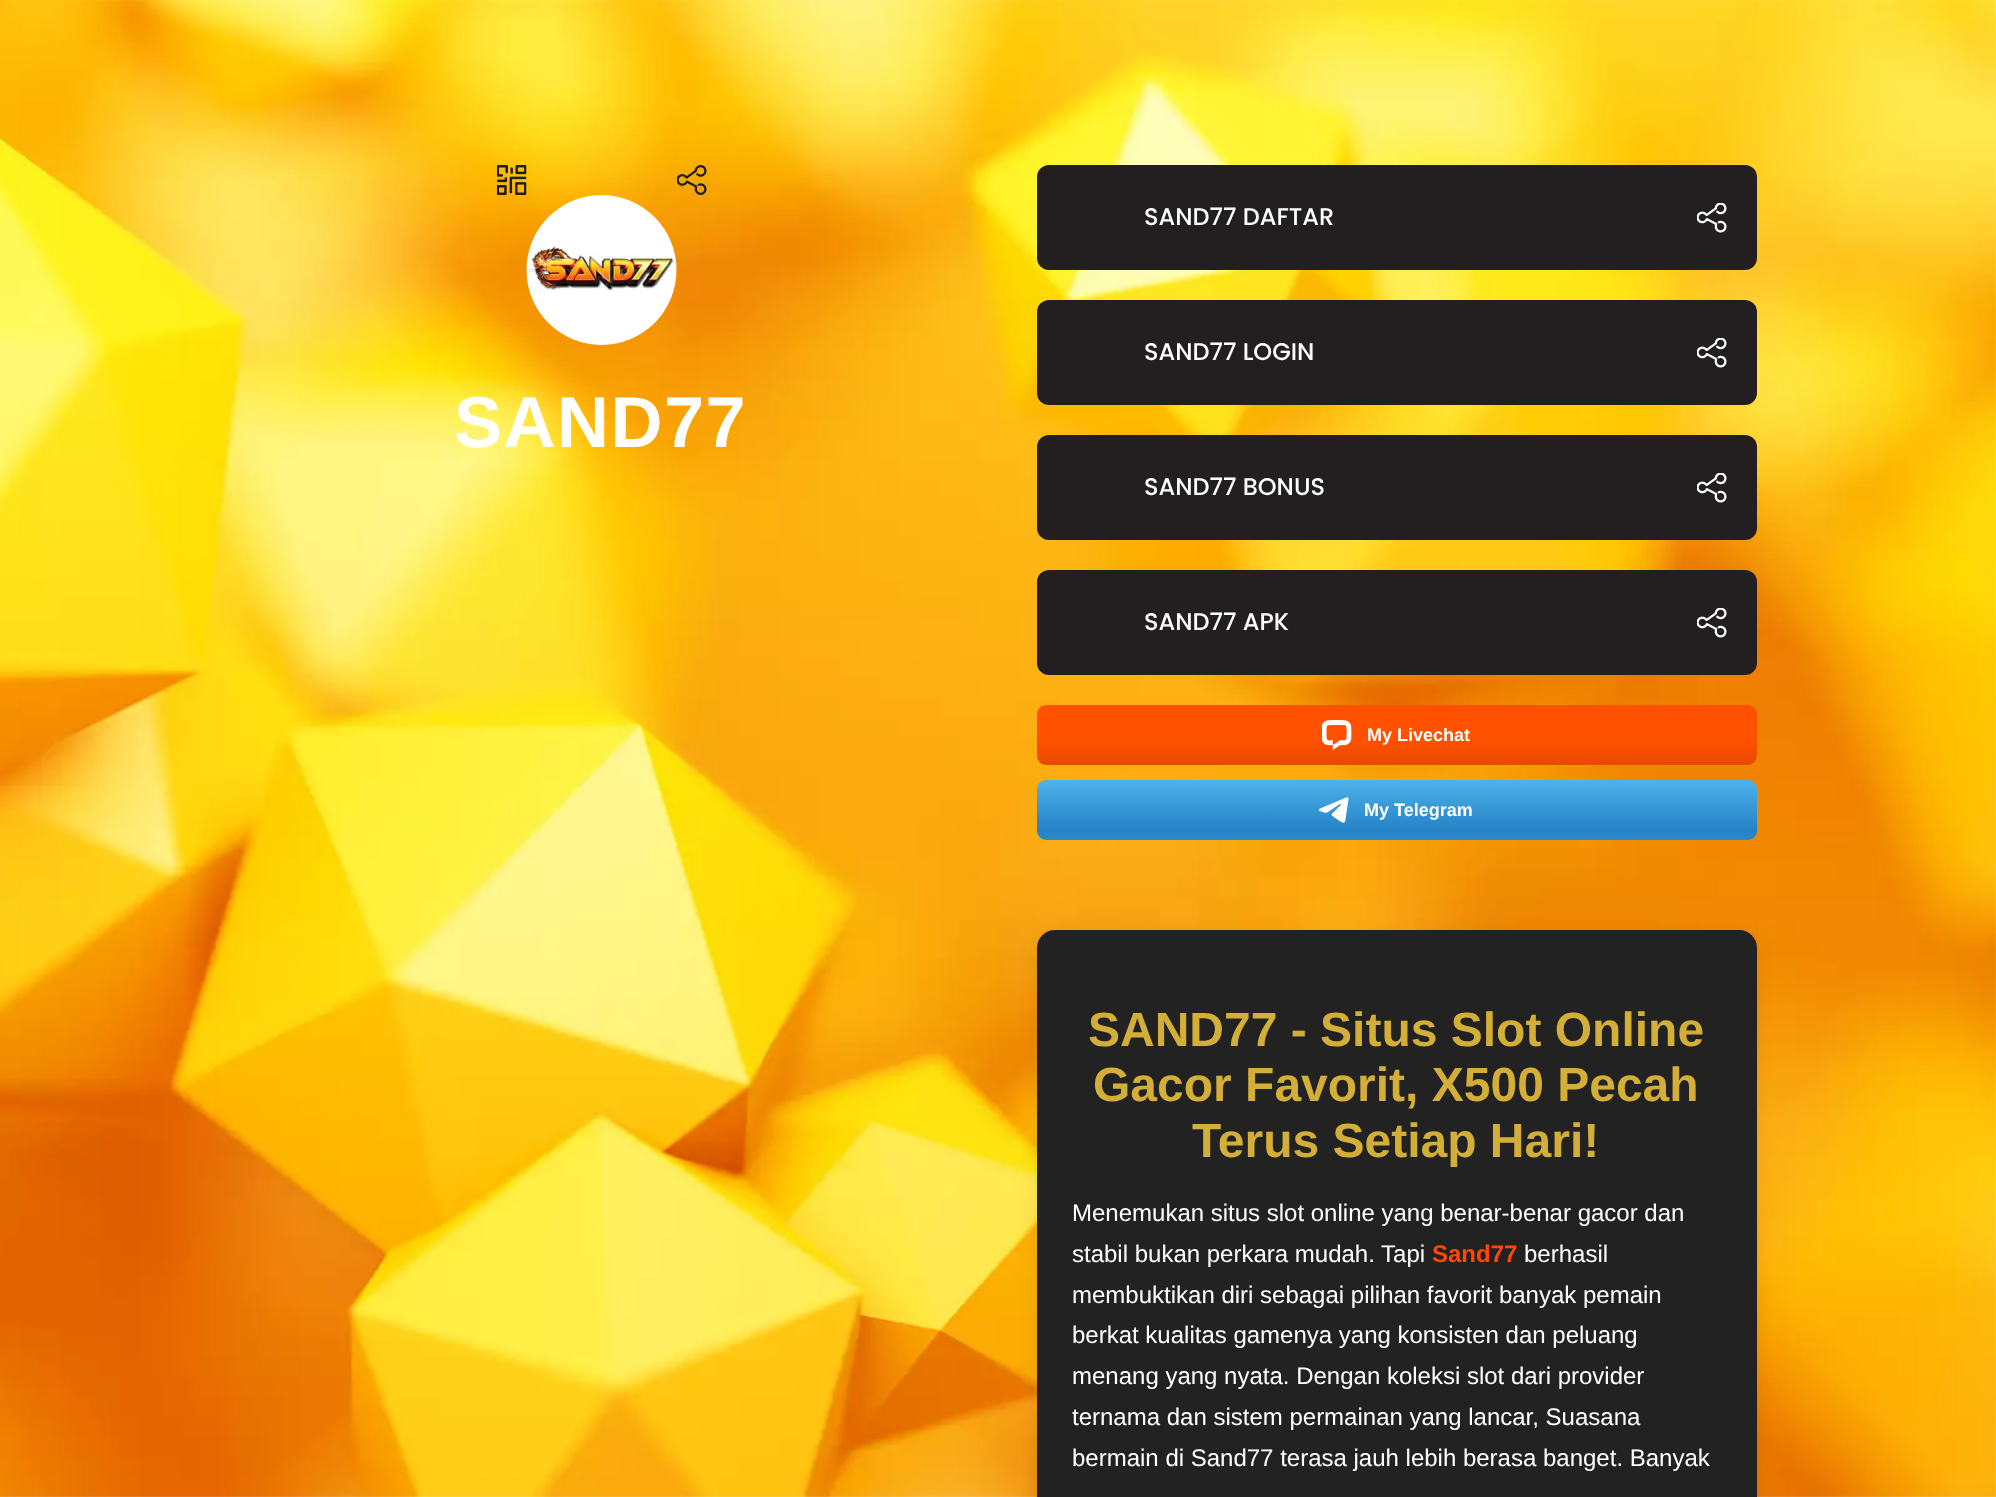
<?xml version="1.0" encoding="UTF-8"?>
<svg xmlns="http://www.w3.org/2000/svg" width="1996" height="1497">
    <defs>
        <linearGradient id="g1" gradientUnits="userSpaceOnUse" x1="1397" y1="705" x2="1397" y2="765"><stop offset="0" stop-color="#FF5100"/><stop offset="0.6" stop-color="#FF5100"/><stop offset="1" stop-color="#E74900"/></linearGradient>
        <linearGradient id="g2" gradientUnits="userSpaceOnUse" x1="1397" y1="780" x2="1397" y2="840"><stop offset="0" stop-color="#4EB2EB"/><stop offset="0.85" stop-color="#2582C6"/><stop offset="1" stop-color="#2C8AC6"/></linearGradient>
        <filter id="blur1" x="-50%" y="-200%" width="200%" height="500%"><feGaussianBlur stdDeviation="9"/></filter>
    </defs>
    <rect width="100%" height="100%" fill="#FFFFFF"/>
    <image x="0" y="0" width="1996" height="1497" href="img_01.png"/>
    <image x="497" y="165" width="30" height="30" href="img_02.png"/>
    <image x="677" y="165" width="30" height="30" href="img_03.png"/>
    <image x="526" y="195" width="151" height="150" href="img_04.png"/>
    <text x="454" y="447" font-family="Liberation Sans" font-size="72" font-weight="700" letter-spacing="1.5" fill="#FFFFFF">SAND77</text>
    <rect x="1037" y="165" width="720" height="105" rx="12" fill="#231F20"/>
    <text x="1144" y="225" font-family="Poppins" font-size="24" font-weight="500" fill="#FFFFFF">SAND77 DAFTAR</text>
    <image x="1697" y="203" width="30" height="30" href="img_05.png"/>
    <rect x="1037" y="300" width="720" height="105" rx="12" fill="#231F20"/>
    <text x="1144" y="360" font-family="Poppins" font-size="24" font-weight="500" fill="#FFFFFF">SAND77 LOGIN</text>
    <image x="1697" y="338" width="30" height="30" href="img_05.png"/>
    <rect x="1037" y="435" width="720" height="105" rx="12" fill="#231F20"/>
    <text x="1144" y="495" font-family="Poppins" font-size="24" font-weight="500" fill="#FFFFFF">SAND77 BONUS</text>
    <image x="1697" y="473" width="30" height="30" href="img_05.png"/>
    <rect x="1037" y="570" width="720" height="105" rx="12" fill="#231F20"/>
    <text x="1144" y="630" font-family="Poppins" font-size="24" font-weight="500" fill="#FFFFFF">SAND77 APK</text>
    <image x="1697" y="608" width="30" height="30" href="img_05.png"/>
    <rect x="1037" y="705" width="720" height="60" rx="9" fill="url(#g1)"/>
    <image x="1322" y="720" width="30" height="30" href="img_06.png"/>
    <text x="1367" y="741" font-family="Liberation Sans" font-size="18" font-weight="700" fill="#FFFFFF">My Livechat</text>
    <rect x="1037" y="780" width="720" height="60" rx="9" fill="url(#g2)"/>
    <image x="1319" y="797" width="30" height="26" href="img_07.png"/>
    <text x="1364" y="816" font-family="Liberation Sans" font-size="18" font-weight="700" fill="#FFFFFF">My Telegram</text>
    <rect x="1037" y="936" width="720" height="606" rx="18" fill="#000000" fill-opacity="0.08" filter="url(#blur1)"/>
    <rect x="1037" y="930" width="720" height="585" rx="18" fill="#222222"/>
    <text x="1088" y="1046" font-family="Liberation Sans" font-size="48" font-weight="700" fill="#D4AF37">SAND77 - Situs Slot Online</text>
    <text x="1093" y="1101" font-family="Liberation Sans" font-size="48" font-weight="700" fill="#D4AF37">Gacor Favorit, X500 Pecah</text>
    <text x="1192" y="1157" font-family="Liberation Sans" font-size="48" font-weight="700" fill="#D4AF37">Terus Setiap Hari!</text>
    <text font-family="Liberation Sans" font-size="24" fill="#FFFFFF">
        <tspan x="1072" y="1221">Menemukan situs slot online yang benar-benar gacor dan</tspan>
        <tspan x="1072" y="1262">stabil bukan perkara mudah. Tapi</tspan>
    </text>
    <text x="1432" y="1262" font-family="Liberation Sans" font-size="24" font-weight="700" fill="#FF4800">Sand77</text>
    <text x="1524" y="1262" font-family="Liberation Sans" font-size="24" fill="#FFFFFF">berhasil</text>
    <text font-family="Liberation Sans" font-size="24" fill="#FFFFFF">
        <tspan x="1072" y="1303">membuktikan diri sebagai pilihan favorit banyak pemain</tspan>
        <tspan x="1072" y="1343">berkat kualitas gamenya yang konsisten dan peluang</tspan>
        <tspan x="1072" y="1384">menang yang nyata. Dengan koleksi slot dari provider</tspan>
        <tspan x="1072" y="1425">ternama dan sistem permainan yang lancar, Suasana</tspan>
        <tspan x="1072" y="1466">bermain di Sand77 terasa jauh lebih berasa banget. Banyak</tspan>
    </text>
</svg>
